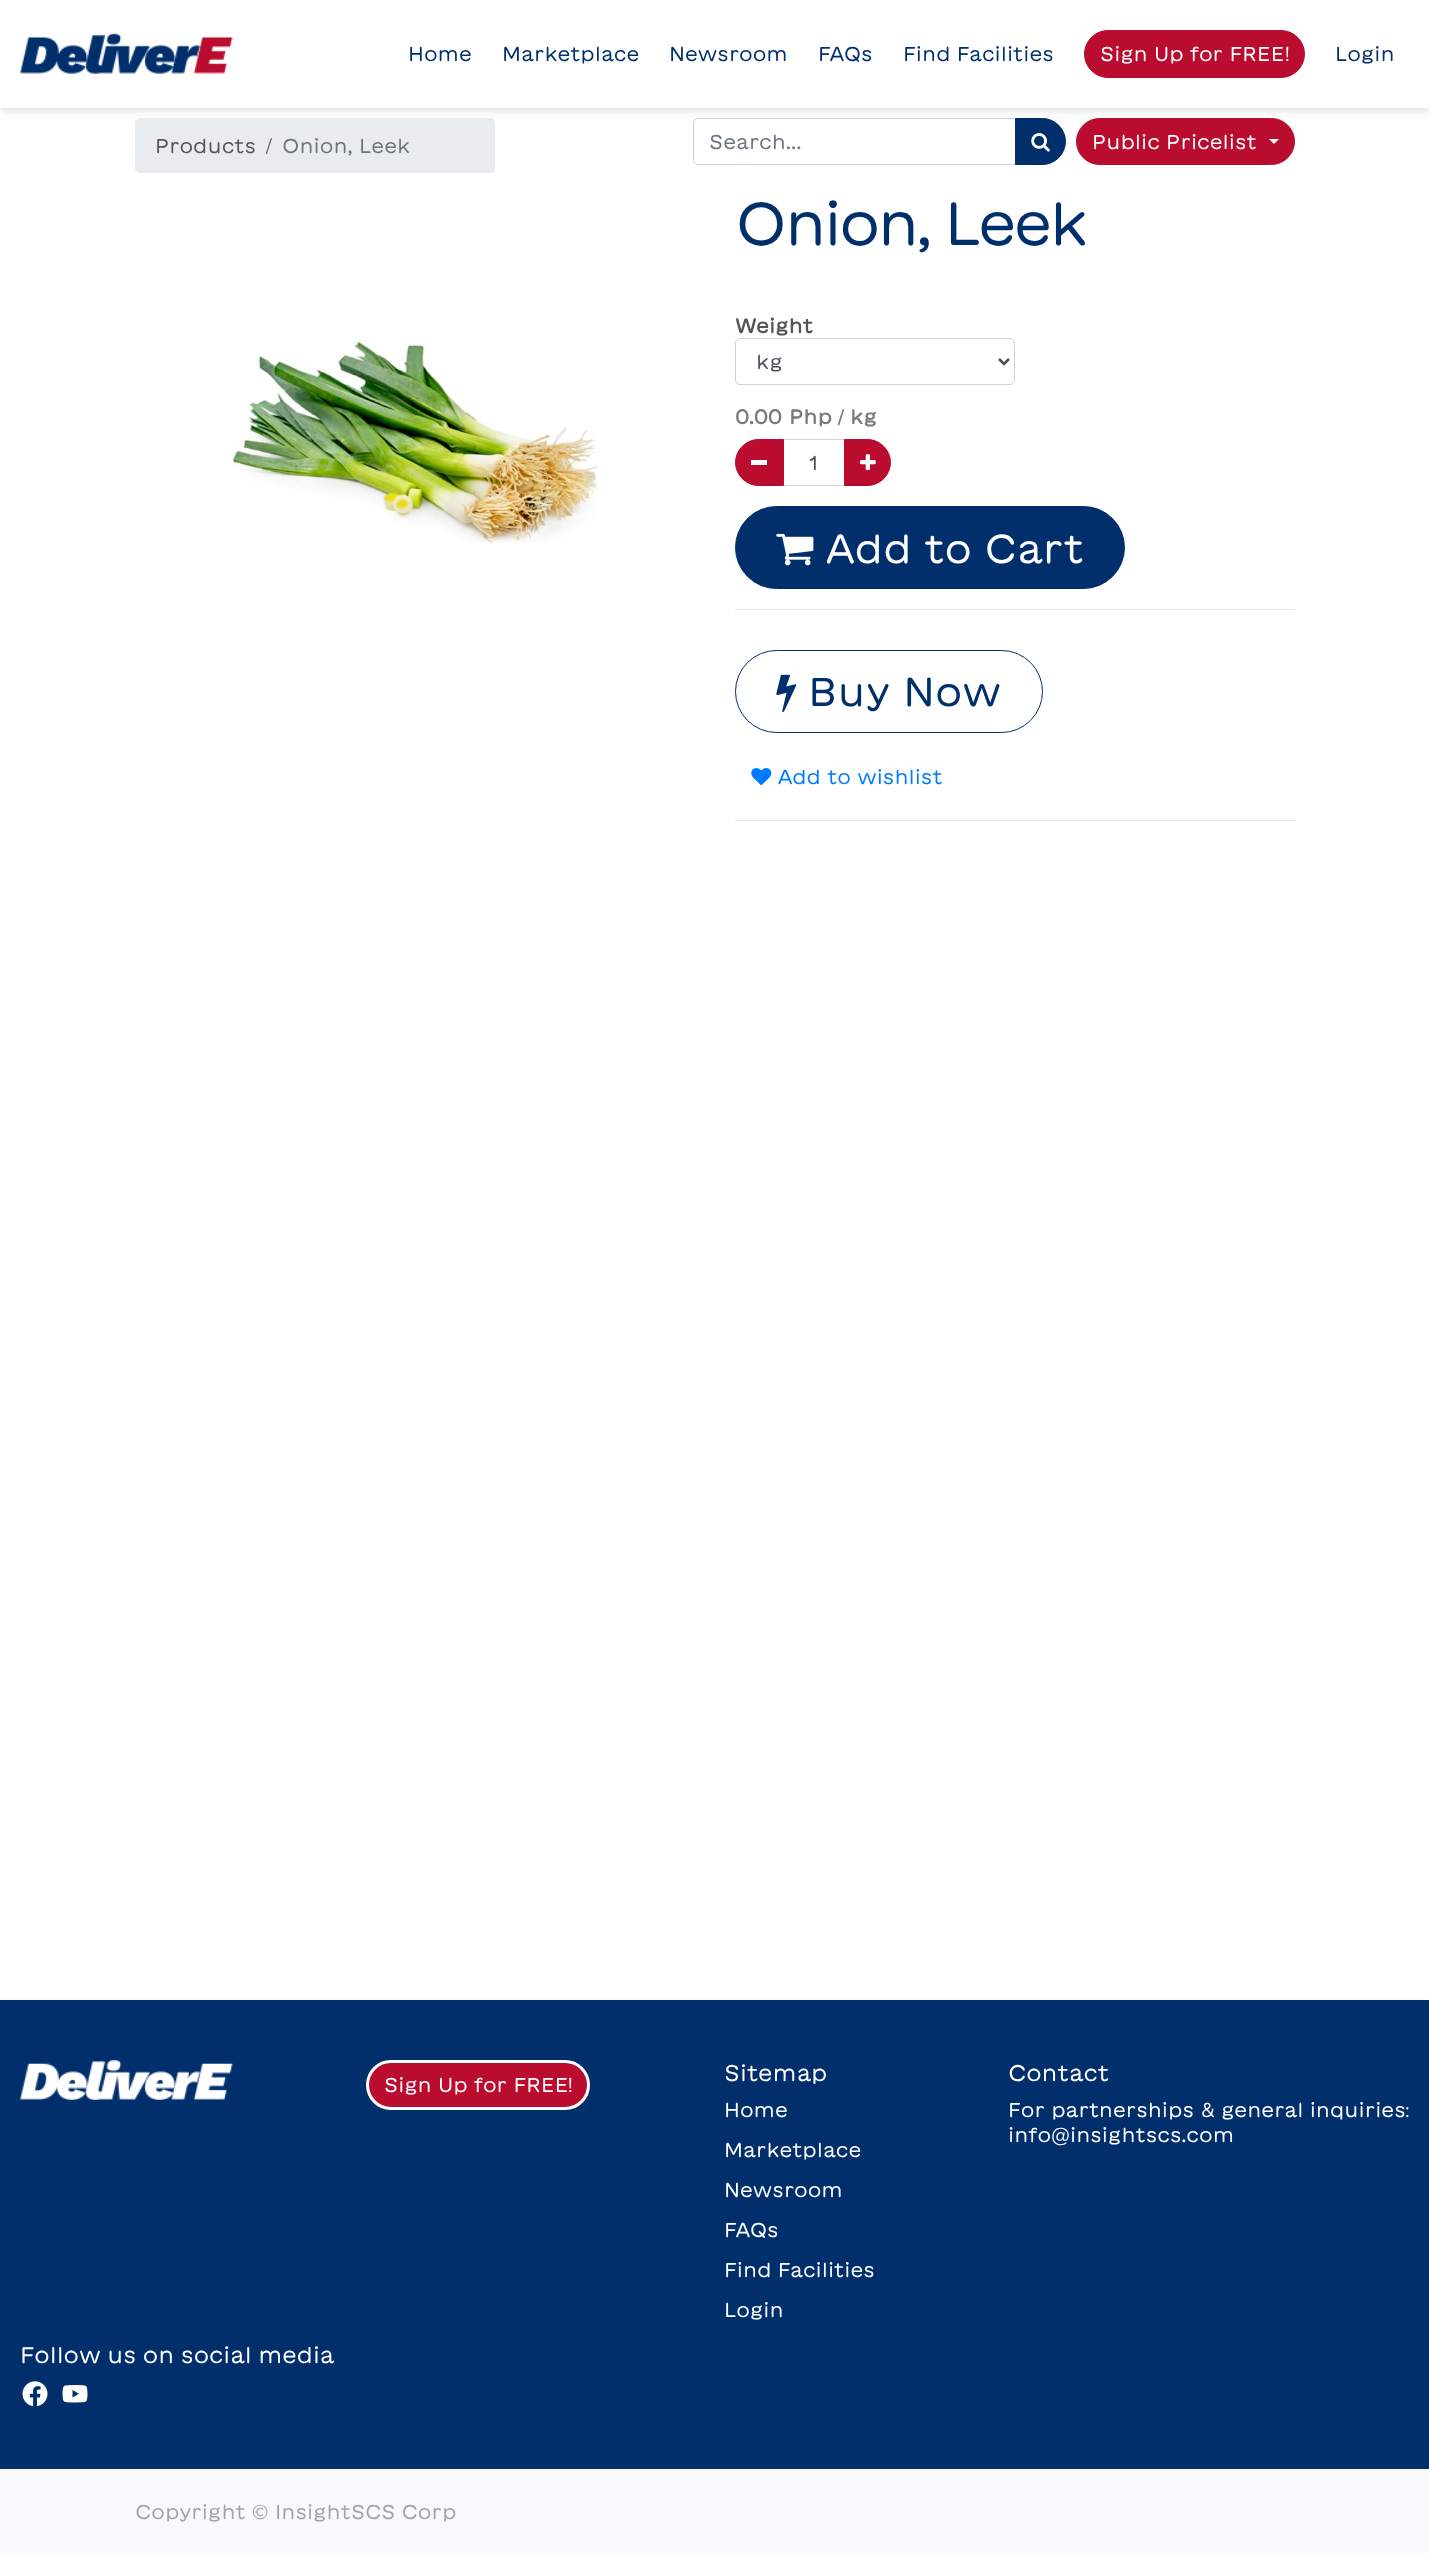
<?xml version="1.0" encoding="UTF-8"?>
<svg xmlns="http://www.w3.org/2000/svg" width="1429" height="2553">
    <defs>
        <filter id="blur1" x="-50%" y="-200%" width="200%" height="500%"><feGaussianBlur stdDeviation="2.5"/></filter>
        <filter id="blur2" x="-50%" y="-200%" width="200%" height="500%"><feGaussianBlur stdDeviation="4"/></filter>
    </defs>
    <rect width="100%" height="100%" fill="#FFFFFF"/>
    <rect x="1" y="4" width="1428" height="105" fill="#000000" fill-opacity="0.06" filter="url(#blur1)"/>
    <rect x="135" y="118" width="360" height="55" rx="5" fill="#E9ECEF"/>
    <path d="M 698 118.5 H 1015.5 V 164.5 H 698 C 695.5 164.5 693.5 162.5 693.5 160 V 123 C 693.5 120.5 695.5 118.5 698 118.5 Z" fill="none" stroke="#CED4DA"/>
    <rect x="1076.5" y="118.5" width="218" height="46" rx="23" fill="#BA0C2F" stroke="#BA0C2F"/>
    <rect x="1" y="6" width="1428" height="105" fill="#000000" fill-opacity="0.1" filter="url(#blur2)"/>
    <rect x="0" y="0" width="1429" height="108" fill="#FFFFFF"/>
    <image x="20" y="33" width="213" height="41" href="img_01.png"/>
    <text x="408" y="61" font-family="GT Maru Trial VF" font-size="20" fill="#002F6C">Home</text>
    <text x="502" y="61" font-family="GT Maru Trial VF" font-size="20" fill="#002F6C">Marketplace</text>
    <text x="669" y="61" font-family="GT Maru Trial VF" font-size="20" fill="#002F6C">Newsroom</text>
    <text x="818" y="61" font-family="GT Maru Trial VF" font-size="20" fill="#002F6C">FAQs</text>
    <text x="903" y="61" font-family="GT Maru Trial VF" font-size="20" fill="#002F6C">Find Facilities</text>
    <rect x="1084.5" y="30.5" width="220" height="47" rx="23.5" fill="#BA0C2F" stroke="#BA0C2F"/>
    <text x="1100" y="61" font-family="GT Maru Trial VF" font-size="20" fill="#FFFFFF">Sign Up for FREE</text>
    <text x="1285" y="61" font-family="Nunito" font-size="20" fill="#FFFFFF">!</text>
    <text x="1335" y="61" font-family="GT Maru Trial VF" font-size="20" fill="#002F6C">Login</text>
    <text x="155" y="153" font-family="GT Maru Trial VF" font-size="20" fill="#555555">Products</text>
    <text x="266" y="153" font-family="Nunito" font-size="20" fill="#6C757D">/</text>
    <text x="282" y="153" font-family="GT Maru Trial VF" font-size="20" fill="#6C757D">Onion, Leek</text>
    <text x="709" y="149" font-family="GT Maru Trial VF" font-size="20" fill="#6C757D">Search...</text>
    <path d="M 1015.5 118.5 H 1042.5 C 1055 118.5 1065.5 129 1065.5 141.5 C 1065.5 154 1055 164.5 1042.5 164.5 H 1015.5 Z" fill="#002F6C" stroke="#002F6C"/>
    <image x="1031" y="133" width="19" height="19" href="img_02.png"/>
    <text x="1092" y="149" font-family="GT Maru Trial VF" font-size="20" fill="#FFFFFF">Public Pricelist</text>
    <path d="M 1269 139 H 1279 L 1274 144 Z" fill="#FFFFFF"/>
    <image x="232" y="341" width="366" height="203" href="img_03.png"/>
    <text x="735" y="245" word-spacing="-1" font-family="GT Maru Trial VF" font-size="60" letter-spacing="-3" fill="#002F6C">Onion, Leek</text>
    <text x="735" y="333" font-family="GT Maru Trial VF" font-size="20" font-weight="700" fill="#555555">Weight</text>
    <rect x="735.5" y="338.5" width="279" height="46" rx="4.5" fill="none" stroke="#CED4DA"/>
    <path d="M 999 359 L 1004 364 L 1009 359" fill="none" stroke="#495057" stroke-width="2.5"/>
    <text x="756" y="369" font-family="GT Maru Trial VF" font-size="20" fill="#495057">kg</text>
    <text x="735" y="424" font-family="GT Maru Trial VF" font-size="20" font-weight="700" fill="#7B7B7B">0.00</text>
    <text x="789" y="424" font-family="GT Maru Trial VF" font-size="20" font-weight="700" fill="#7B7B7B">Php</text>
    <text x="838" y="424" font-family="Nunito" font-size="20" font-weight="600" fill="#7B7B7B">/</text>
    <text x="850" y="424" font-family="GT Maru Trial VF" font-size="20" font-weight="700" fill="#7B7B7B">kg</text>
    <rect x="783.5" y="439.5" width="61" height="46" fill="none" stroke="#CED4DA"/>
    <path d="M 758.5 439.5 H 783.5 V 485.5 H 758.5 C 746 485.5 735.5 475 735.5 462.5 C 735.5 450 746 439.5 758.5 439.5 Z" fill="#BA0C2F" stroke="#BA0C2F"/>
    <rect x="751" y="460" width="16" height="5" fill="#FFFFFF"/>
    <text x="809" y="470" font-family="GT Maru Trial VF" font-size="20" fill="#495057">1</text>
    <path d="M 844.5 439.5 H 867.5 C 880 439.5 890.5 450 890.5 462.5 C 890.5 475 880 485.5 867.5 485.5 H 844.5 Z" fill="#BA0C2F" stroke="#BA0C2F"/>
    <image x="860" y="454" width="16" height="16" href="img_04.png"/>
    <rect x="735.5" y="506.5" width="389" height="82" rx="41" fill="#002F6C" stroke="#002F6C"/>
    <image x="776" y="533" width="38" height="33" href="img_05.png"/>
    <text x="826" y="563" font-family="GT Maru Trial VF" font-size="40" fill="#FFFFFF">Add to Cart</text>
    <rect x="735" y="609" width="560" height="1" fill="#E6E6E6"/>
    <rect x="735.5" y="650.5" width="307" height="82" rx="41" fill="none" stroke="#002F6C"/>
    <image x="776" y="674" width="21" height="38" href="img_06.png"/>
    <text x="808" y="706" font-family="GT Maru Trial VF" font-size="40" fill="#002F6C">Buy Now</text>
    <image x="751" y="768" width="21" height="18" href="img_07.png"/>
    <text x="778" y="784" font-family="GT Maru Trial VF" font-size="20" fill="#007BFF">Add to wishlist</text>
    <rect x="735" y="820" width="560" height="1" fill="#E6E6E6"/>
    <rect x="0" y="1999" width="1429" height="554" fill="#F8F9FA"/>
    <rect x="0" y="2000" width="1429" height="469" fill="#002F6C"/>
    <image x="20" y="2060" width="213" height="40" href="img_08.png"/>
    <rect x="367.5" y="2061.5" width="221" height="47" rx="23.5" fill="#BA0C2F" stroke="#FFFFFF" stroke-width="3"/>
    <text x="384" y="2092" font-family="GT Maru Trial VF" font-size="20" fill="#FFFFFF">Sign Up for FREE</text>
    <text x="568" y="2092" font-family="Nunito" font-size="20" fill="#FFFFFF">!</text>
    <text x="724" y="2081" font-family="GT Maru Trial VF" font-size="22.5" fill="#FFFFFF">Sitemap</text>
    <text x="724" y="2117" font-family="GT Maru Trial VF" font-size="20" fill="#FFFFFF">Home</text>
    <text x="724" y="2157" font-family="GT Maru Trial VF" font-size="20" fill="#FFFFFF">Marketplace</text>
    <text x="724" y="2197" font-family="GT Maru Trial VF" font-size="20" fill="#FFFFFF">Newsroom</text>
    <text x="724" y="2237" font-family="GT Maru Trial VF" font-size="20" fill="#FFFFFF">FAQs</text>
    <text x="724" y="2277" font-family="GT Maru Trial VF" font-size="20" fill="#FFFFFF">Find Facilities</text>
    <text x="724" y="2317" font-family="GT Maru Trial VF" font-size="20" fill="#FFFFFF">Login</text>
    <text x="1008" y="2081" font-family="GT Maru Trial VF" font-size="22.5" fill="#FFFFFF">Contact</text>
    <text x="1008" y="2117" font-family="GT Maru Trial VF" font-size="20" fill="#FFFFFF">For partnerships</text>
    <text x="1201" y="2117" font-family="Nunito" font-size="20" fill="#FFFFFF">&amp;</text>
    <text x="1221" y="2117" font-family="GT Maru Trial VF" font-size="20" fill="#FFFFFF">general inquiries</text>
    <text x="1405" y="2117" font-family="Nunito" font-size="20" fill="#FFFFFF">:</text>
    <text x="1008" y="2142" font-family="GT Maru Trial VF" font-size="20" fill="#FFFFFF">info</text>
    <text x="1051" y="2142" font-family="Nunito" font-size="20" fill="#FFFFFF">@</text>
    <text x="1070" y="2142" font-family="GT Maru Trial VF" font-size="20" fill="#FFFFFF">insightscs.com</text>
    <text x="20" y="2363" word-spacing="-0.5" font-family="GT Maru Trial VF" font-size="22.5" fill="#FFFFFF">Follow us on social media</text>
    <image x="22" y="2381" width="26" height="26" href="img_09.png"/>
    <image x="62" y="2385" width="26" height="18" href="img_10.png"/>
    <text x="135" y="2519" font-family="GT Maru Trial VF" font-size="20" fill="#A2A4A6">Copyright</text>
    <text x="252" y="2519" font-family="Nunito" font-size="20" fill="#A2A4A6">©</text>
    <text x="275" y="2519" font-family="GT Maru Trial VF" font-size="20" fill="#A2A4A6">InsightSCS Corp</text>
</svg>
